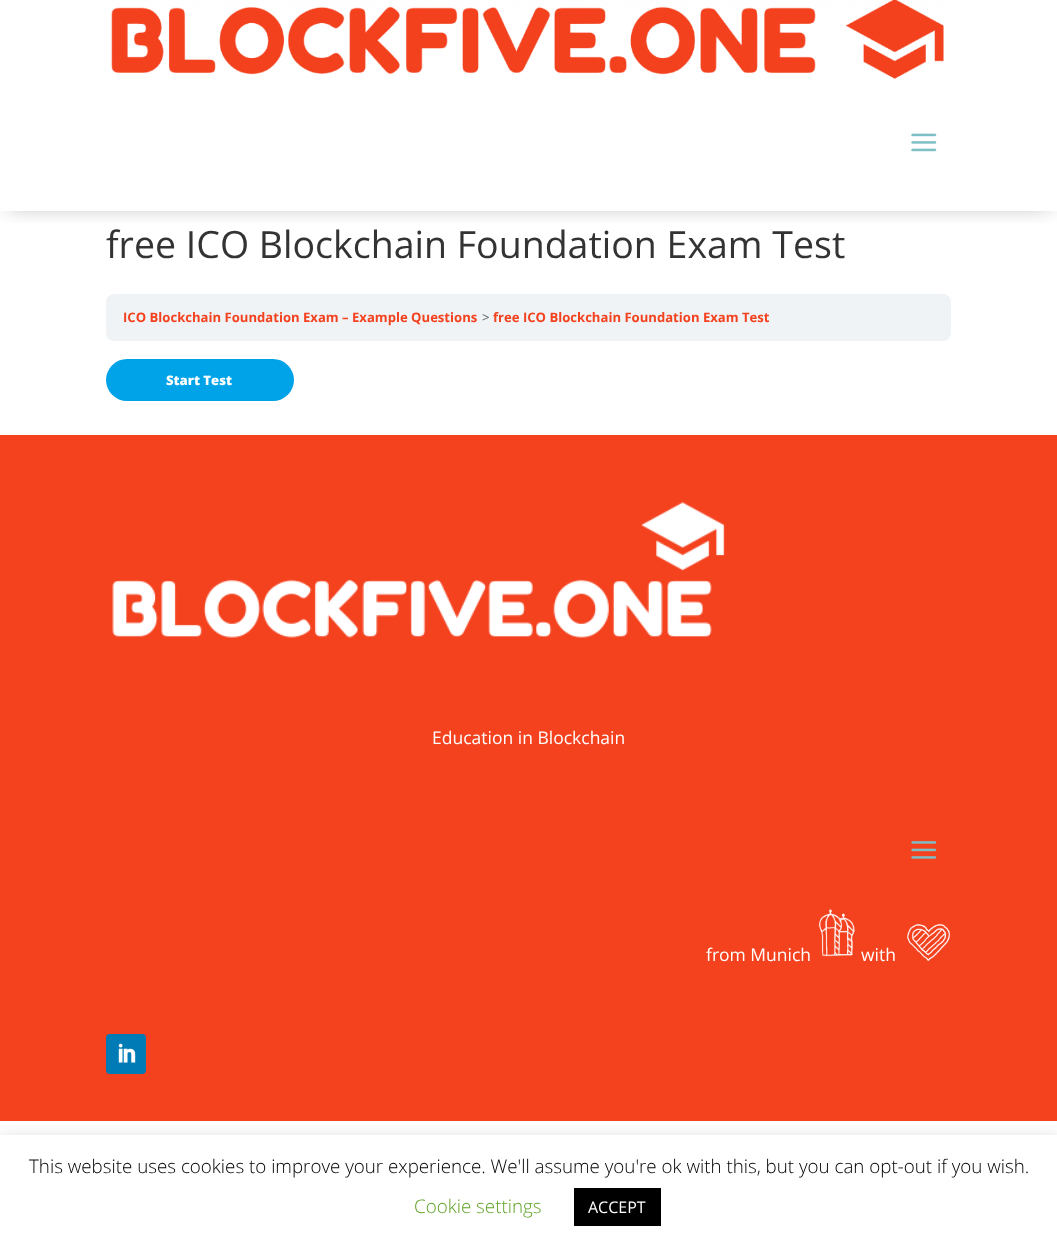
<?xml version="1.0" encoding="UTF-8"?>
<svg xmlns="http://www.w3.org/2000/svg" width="1057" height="1247">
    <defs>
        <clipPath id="clip1"><rect x="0" y="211" width="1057" height="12"/></clipPath>
        <filter id="blur1" x="-50%" y="-200%" width="200%" height="500%"><feGaussianBlur stdDeviation="11"/></filter>
        <clipPath id="clip2"><rect x="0" y="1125" width="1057" height="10"/></clipPath>
        <filter id="blur2" x="-50%" y="-200%" width="200%" height="500%"><feGaussianBlur stdDeviation="6"/></filter>
    </defs>
    <rect width="100%" height="100%" fill="#FFFFFF"/>
    <g clip-path="url(#clip1)">
        <rect x="8" y="-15" width="1042" height="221" fill="#000000" fill-opacity="0.3" filter="url(#blur1)"/>
    </g>
    <image x="111" y="0" width="833" height="79" href="img_01.png"/>
    <image x="911" y="133" width="26" height="19" href="img_02.png"/>
    <text x="106" y="258" font-family="Open Sans" font-size="37.5" fill="#333333">free ICO Blockchain Foundation Exam Test</text>
    <rect x="106" y="294" width="845" height="47" rx="8" fill="#F0F3F6"/>
    <text x="123" y="322" font-family="Open Sans" font-size="13.1" font-weight="700" fill="#F4411E">ICO Blockchain Foundation Exam – Example Questions</text>
    <text x="482" y="322" font-family="Open Sans" font-size="13.1" fill="#666666">&gt;</text>
    <text x="493" y="322" font-family="Open Sans" font-size="13.1" font-weight="700" fill="#F4411E">free ICO Blockchain Foundation Exam Test</text>
    <rect x="106" y="359" width="188" height="42" rx="21" fill="#00A2E8"/>
    <text x="166" y="385" font-family="Open Sans" font-size="13.1" font-weight="800" fill="#FFFFFF">Start Test</text>
    <rect x="0" y="435" width="1057" height="686" fill="#F4411E"/>
    <image x="112" y="502" width="613" height="136" href="img_03.png"/>
    <text x="432" y="744" font-family="Open Sans" font-size="17.5" fill="#FFFFFF">Education in Blockchain</text>
    <image x="911" y="841" width="26" height="18" href="img_04.png"/>
    <text x="706" y="961" font-family="Open Sans" font-size="17.5" fill="#FFFFFF">from Munich</text>
    <image x="819" y="909" width="39" height="48" href="img_05.png"/>
    <text x="861" y="961" font-family="Open Sans" font-size="17.5" fill="#FFFFFF">with</text>
    <image x="907" y="923" width="43" height="39" href="img_06.png"/>
    <rect x="106" y="1034" width="40" height="40" rx="4" fill="#007BB6"/>
    <image x="118" y="1043" width="18" height="20" href="img_07.png"/>
    <g clip-path="url(#clip2)">
        <rect x="0" y="1134" width="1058" height="112" fill="#ACABAB" fill-opacity="0.3" filter="url(#blur2)"/>
    </g>
    <text x="29" y="1173" font-family="Open Sans" font-size="18.75" font-weight="300" fill="#000000">This website uses cookies to improve your experience. We'll assume you're ok with this, but you can opt-out if you wish.</text>
    <text x="414" y="1213" font-family="Open Sans" font-size="18.75" font-weight="300" fill="#62A329">Cookie settings</text>
    <rect x="574" y="1188" width="87" height="38" fill="#000000"/>
    <text x="588" y="1213" font-family="Open Sans" font-size="16" fill="#FFFFFF">ACCEPT</text>
</svg>
